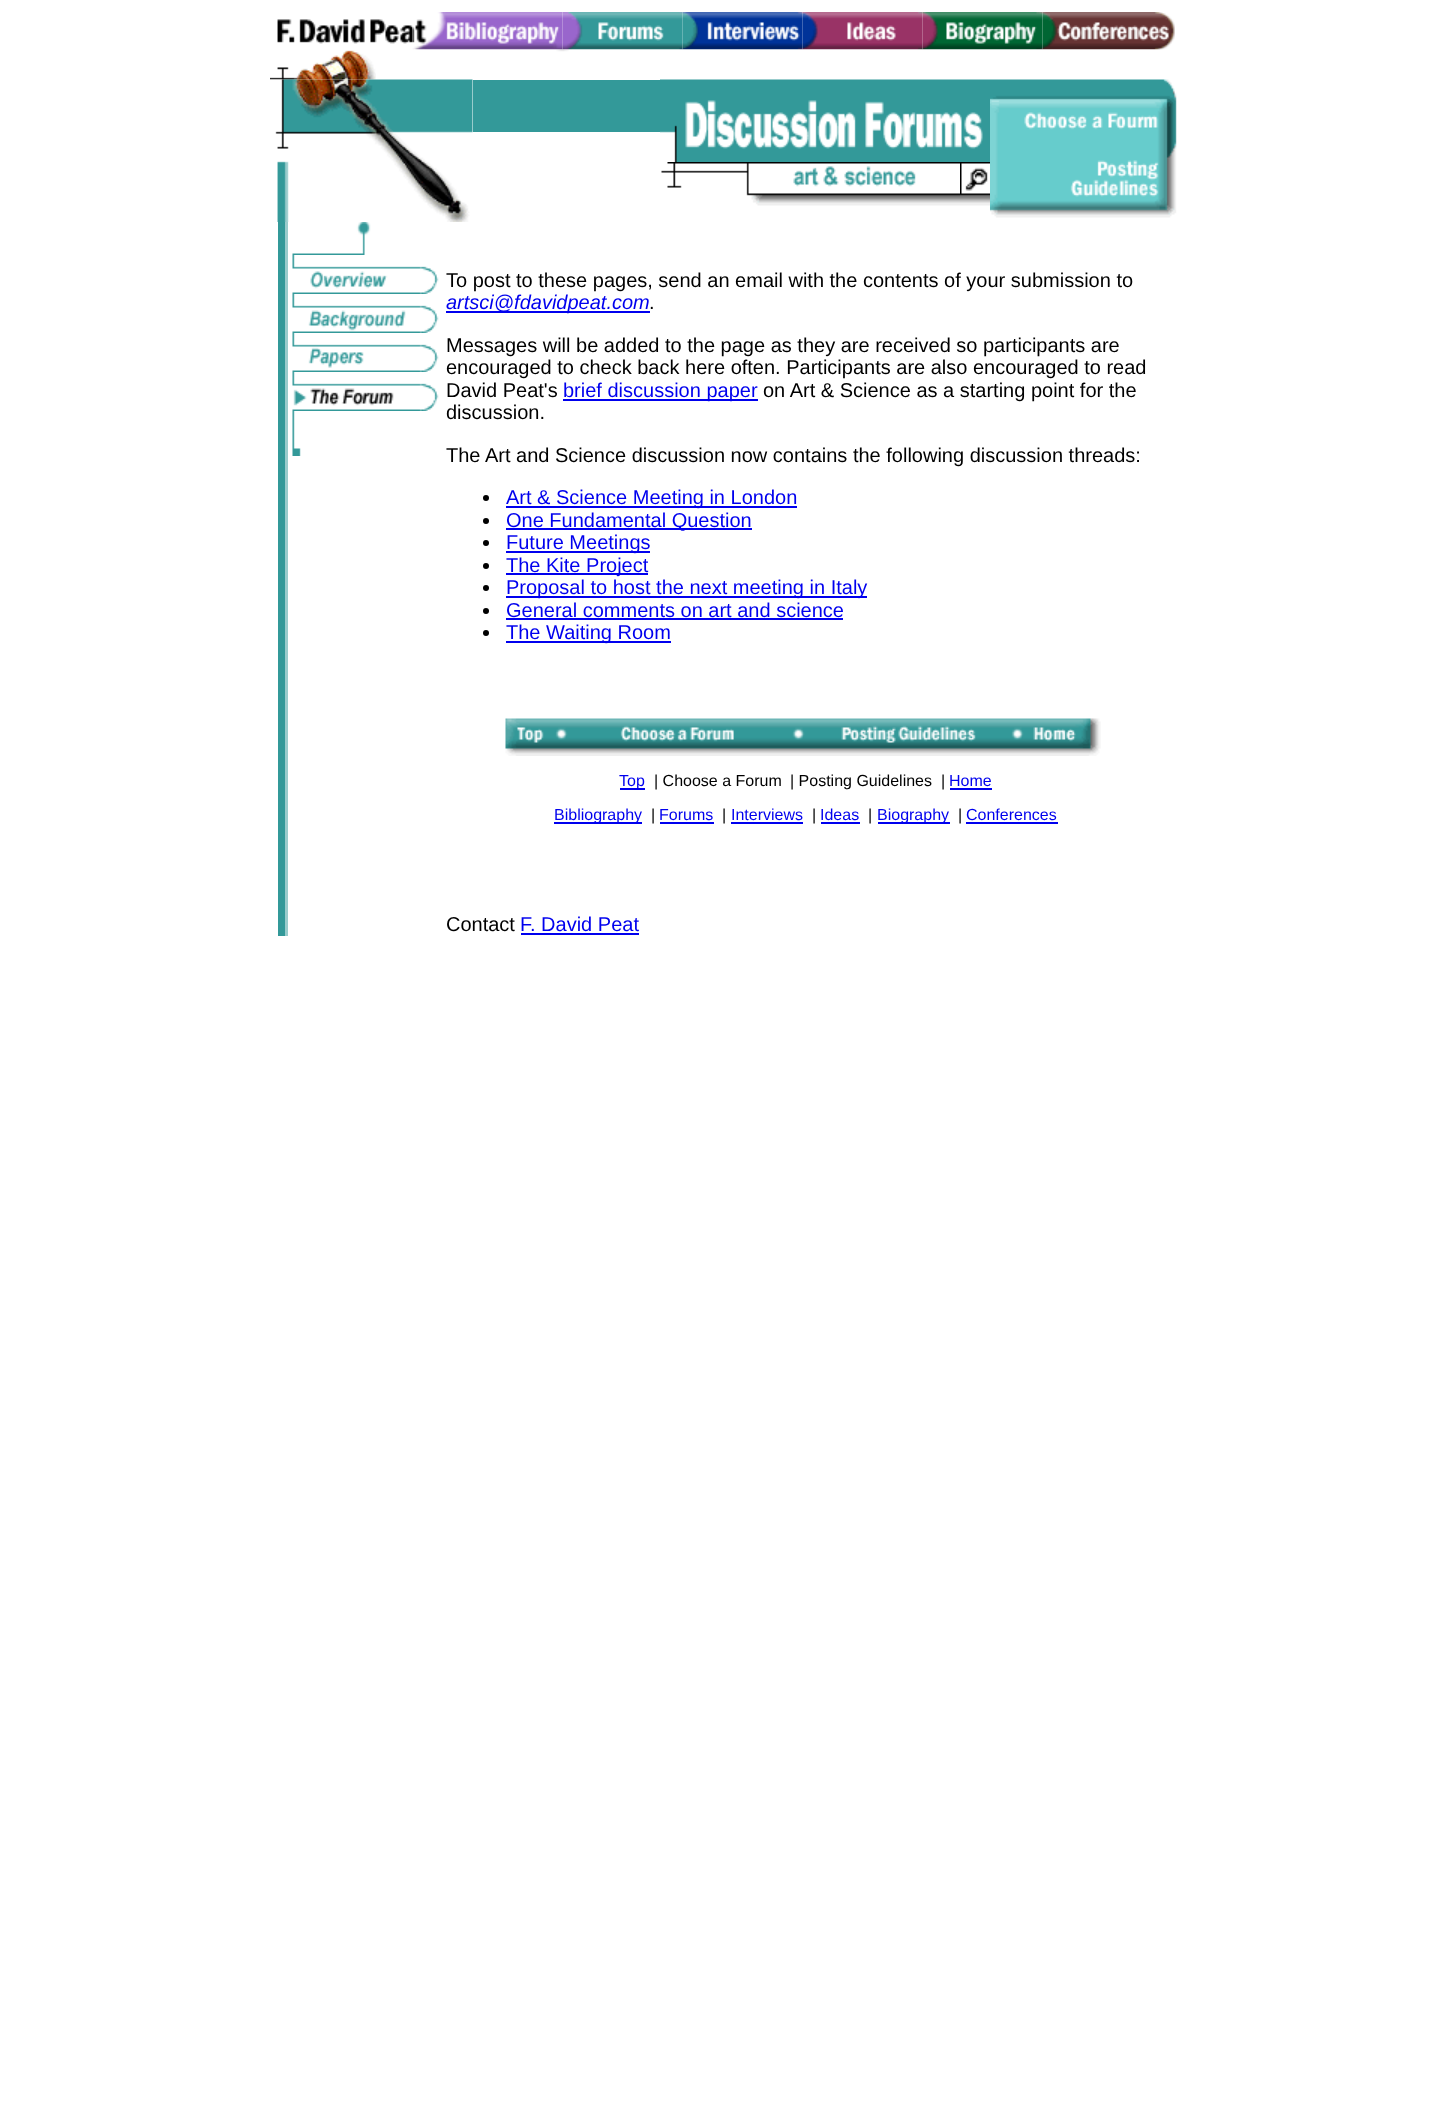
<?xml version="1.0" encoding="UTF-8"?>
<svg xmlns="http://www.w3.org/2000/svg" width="1447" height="2125">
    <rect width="100%" height="100%" fill="#FFFFFF"/>
    <image x="277" y="19" width="136" height="25" href="img_01.png"/>
    <image x="412" y="12" width="151" height="38" href="img_02.png"/>
    <image x="562" y="12" width="121" height="38" href="img_03.png"/>
    <image x="682" y="12" width="121" height="38" href="img_04.png"/>
    <image x="802" y="12" width="121" height="38" href="img_05.png"/>
    <image x="922" y="12" width="121" height="38" href="img_06.png"/>
    <image x="1042" y="12" width="133" height="38" href="img_07.png"/>
    <image x="270" y="50" width="106" height="30" href="img_08.png"/>
    <image x="414" y="49" width="750" height="3" href="img_09.png"/>
    <image x="270" y="79" width="203" height="143" href="img_10.png"/>
    <rect x="473" y="80" width="187" height="52" fill="#339999"/>
    <image x="660" y="79" width="330" height="83" href="img_11.png"/>
    <image x="990" y="79" width="187" height="139" href="img_12.png"/>
    <image x="661" y="162" width="299" height="44" href="img_13.png"/>
    <image x="960" y="162" width="30" height="44" href="img_14.png"/>
    <rect x="278" y="222" width="7" height="714" fill="#339999"/>
    <rect x="285" y="222" width="3" height="714" fill="#99CCCC"/>
    <image x="292" y="222" width="79" height="33" href="img_15.png"/>
    <image x="292" y="255" width="147" height="39" href="img_16.png"/>
    <image x="292" y="294" width="147" height="39" href="img_17.png"/>
    <image x="292" y="333" width="147" height="39" href="img_18.png"/>
    <image x="292" y="372" width="147" height="39" href="img_19.png"/>
    <image x="292" y="411" width="9" height="45" href="img_20.png"/>
    <text x="446" y="287" font-family="Liberation Sans" font-size="20" fill="#000000">To post to these pages, send an email with the contents of your submission to</text>
    <rect x="446" y="311" width="204" height="2" fill="#0000EE"/>
    <text x="446" y="309" font-family="Liberation Sans" font-size="20" font-style="italic" fill="#0000EE">artsci@fdavidpeat.com</text>
    <text x="649" y="309" font-family="Liberation Sans" font-size="20" fill="#000000">.</text>
    <text font-family="Liberation Sans" font-size="20" fill="#000000">
        <tspan x="446" y="352">Messages will be added to the page as they are received so participants are</tspan>
        <tspan x="446" y="374">encouraged to check back here often. Participants are also encouraged to read</tspan>
        <tspan x="446" y="397">David Peat's</tspan>
    </text>
    <rect x="563" y="399" width="195" height="2" fill="#0000EE"/>
    <text x="563" y="397" font-family="Liberation Sans" font-size="20" fill="#0000EE">brief discussion paper</text>
    <text x="763" y="397" font-family="Liberation Sans" font-size="20" fill="#000000">on Art &amp; Science as a starting point for the</text>
    <text x="446" y="419" font-family="Liberation Sans" font-size="20" fill="#000000">discussion.</text>
    <text x="446" y="462" font-family="Liberation Sans" font-size="20" fill="#000000">The Art and Science discussion now contains the following discussion threads:</text>
    <circle cx="486" cy="498" r="3" fill="#000000"/>
    <rect x="506" y="506" width="291" height="2" fill="#0000EE"/>
    <text x="506" y="504" font-family="Liberation Sans" font-size="20" fill="#0000EE">Art &amp; Science Meeting in London</text>
    <circle cx="486" cy="521" r="3" fill="#000000"/>
    <rect x="506" y="528" width="246" height="2" fill="#0000EE"/>
    <text x="506" y="527" font-family="Liberation Sans" font-size="20" fill="#0000EE">One Fundamental Question</text>
    <circle cx="486" cy="543" r="3" fill="#000000"/>
    <rect x="506" y="551" width="144" height="2" fill="#0000EE"/>
    <text x="506" y="549" font-family="Liberation Sans" font-size="20" fill="#0000EE">Future Meetings</text>
    <circle cx="486" cy="566" r="3" fill="#000000"/>
    <rect x="506" y="573" width="142" height="2" fill="#0000EE"/>
    <text x="506" y="572" font-family="Liberation Sans" font-size="20" fill="#0000EE">The Kite Project</text>
    <circle cx="486" cy="588" r="3" fill="#000000"/>
    <rect x="506" y="596" width="361" height="2" fill="#0000EE"/>
    <text x="506" y="594" font-family="Liberation Sans" font-size="20" fill="#0000EE">Proposal to host the next meeting in Italy</text>
    <circle cx="486" cy="611" r="3" fill="#000000"/>
    <text x="506" y="617" font-family="Liberation Sans" font-size="20" fill="#0000EE">General comments on art and science</text>
    <rect x="506" y="618" width="337" height="2" fill="#0000EE"/>
    <circle cx="486" cy="633" r="3" fill="#000000"/>
    <rect x="506" y="641" width="165" height="2" fill="#0000EE"/>
    <text x="506" y="639" font-family="Liberation Sans" font-size="20" fill="#0000EE">The Waiting Room</text>
    <image x="505" y="718" width="596" height="38" href="img_21.png"/>
    <rect x="620" y="788" width="25" height="2" fill="#0000EE"/>
    <text x="619" y="786" font-family="Liberation Sans" font-size="16" fill="#0000EE">Top</text>
    <text x="654" y="786" font-family="Liberation Sans" font-size="16" fill="#000000">| Choose a Forum</text>
    <text x="790" y="786" font-family="Liberation Sans" font-size="16" fill="#000000">| Posting Guidelines</text>
    <text x="941" y="786" font-family="Liberation Sans" font-size="16" fill="#000000">|</text>
    <text x="949" y="786" font-family="Liberation Sans" font-size="16" fill="#0000EE">Home</text>
    <rect x="950" y="788" width="42" height="2" fill="#0000EE"/>
    <rect x="554" y="822" width="88" height="2" fill="#0000EE"/>
    <text x="554" y="820" font-family="Liberation Sans" font-size="16" fill="#0000EE">Bibliography</text>
    <text x="651" y="820" font-family="Liberation Sans" font-size="16" fill="#000000">|</text>
    <text x="659" y="820" font-family="Liberation Sans" font-size="16" fill="#0000EE">Forums</text>
    <rect x="660" y="822" width="54" height="2" fill="#0000EE"/>
    <text x="722" y="820" font-family="Liberation Sans" font-size="16" fill="#000000">|</text>
    <text x="731" y="820" font-family="Liberation Sans" font-size="16" fill="#0000EE">Interviews</text>
    <rect x="731" y="822" width="72" height="2" fill="#0000EE"/>
    <text x="812" y="820" font-family="Liberation Sans" font-size="16" fill="#000000">|</text>
    <text x="820" y="820" font-family="Liberation Sans" font-size="16" fill="#0000EE">Ideas</text>
    <rect x="821" y="822" width="39" height="2" fill="#0000EE"/>
    <text x="868" y="820" font-family="Liberation Sans" font-size="16" fill="#000000">|</text>
    <rect x="878" y="822" width="72" height="2" fill="#0000EE"/>
    <text x="877" y="820" font-family="Liberation Sans" font-size="16" fill="#0000EE">Biography</text>
    <text x="958" y="820" font-family="Liberation Sans" font-size="16" fill="#000000">|</text>
    <text x="966" y="820" font-family="Liberation Sans" font-size="16" fill="#0000EE">Conferences</text>
    <rect x="966" y="822" width="92" height="2" fill="#0000EE"/>
    <text x="446" y="931" font-family="Liberation Sans" font-size="20" fill="#000000">Contact</text>
    <text x="520" y="931" font-family="Liberation Sans" font-size="20" fill="#0000EE">F. David Peat</text>
    <rect x="521" y="933" width="118" height="2" fill="#0000EE"/>
</svg>
